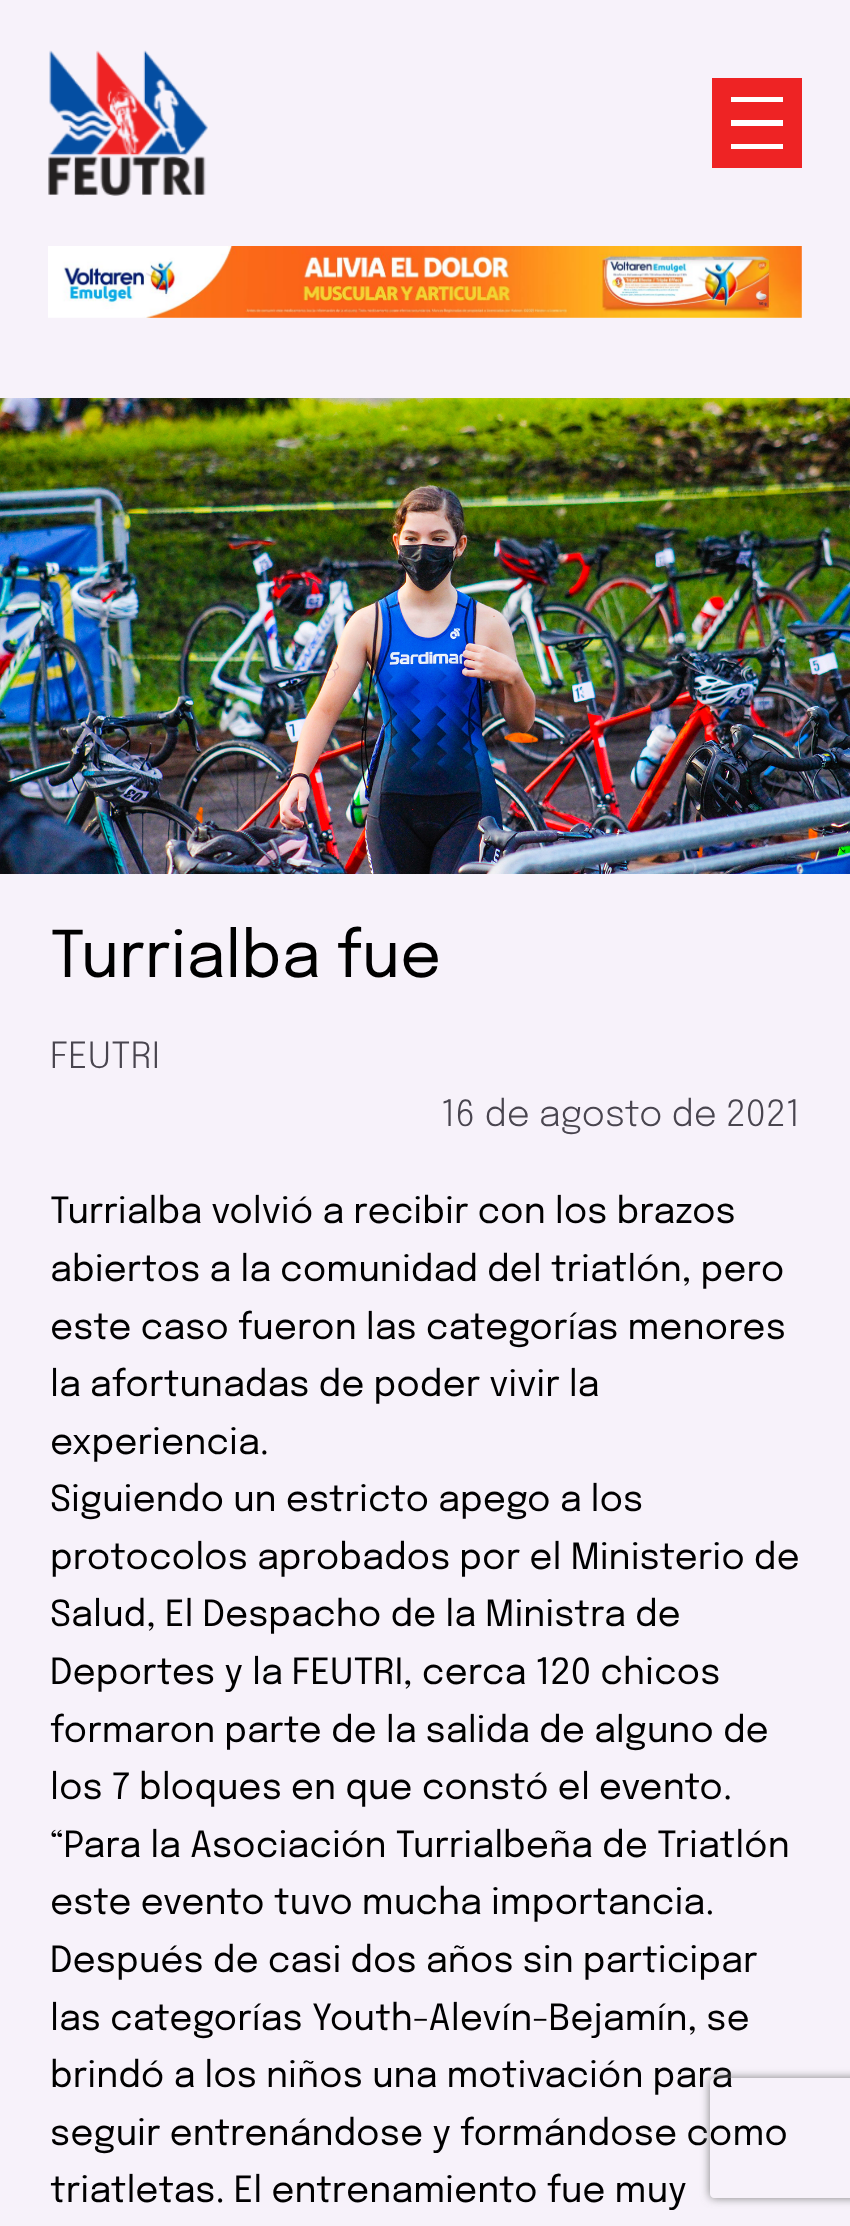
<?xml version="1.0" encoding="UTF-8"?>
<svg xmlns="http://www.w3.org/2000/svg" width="850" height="2226">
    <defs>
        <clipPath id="clip1"><path d="M 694 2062 H 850 V 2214 H 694 Z M 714 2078 H 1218 C 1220 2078 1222 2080 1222 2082 V 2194 C 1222 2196 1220 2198 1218 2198 H 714 C 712 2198 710 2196 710 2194 V 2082 C 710 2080 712 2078 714 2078 Z" clip-rule="evenodd"/></clipPath>
        <filter id="blur1" x="-50%" y="-200%" width="200%" height="500%"><feGaussianBlur stdDeviation="5"/></filter>
    </defs>
    <rect width="100%" height="100%" fill="#F7F2FA"/>
    <image x="48" y="50" width="160" height="146" href="img_01.png"/>
    <rect x="712" y="78" width="90" height="90" fill="#EE2324"/>
    <path d="M 731 97 V 102 H 783 V 97 Z M 731 126 H 783 V 120 H 731 Z M 731 149 H 783 V 144 H 731 Z" fill="#FFFFFF"/>
    <image x="48" y="246" width="754" height="72" href="img_02.png"/>
    <image x="0" y="398" width="850" height="476" href="img_03.png"/>
    <text x="50" y="977" font-family="Epilogue" font-size="64" fill="#000000">Turrialba fue</text>
    <text x="50" y="1068" font-family="Epilogue" font-size="36" font-weight="300" fill="#49454F">FEUTRI</text>
    <text x="441" y="1126" font-family="Epilogue" font-size="36" font-weight="300" fill="#49454F">16 de agosto de 2021</text>
    <text font-family="Epilogue" font-size="36" fill="#000000">
        <tspan x="50" y="1223">Turrialba volvió a recibir con los brazos</tspan>
        <tspan x="50" y="1281">abiertos a la comunidad del triatlón, pero</tspan>
        <tspan x="50" y="1339">este caso fueron las categorías menores</tspan>
        <tspan x="50" y="1396">la afortunadas de poder vivir la</tspan>
        <tspan x="50" y="1454">experiencia.</tspan>
        <tspan x="50" y="1511">Siguiendo un estricto apego a los</tspan>
        <tspan x="50" y="1569">protocolos aprobados por el Ministerio de</tspan>
        <tspan x="50" y="1626">Salud, El Despacho de la Ministra de</tspan>
        <tspan x="50" y="1684">Deportes y la FEUTRI, cerca 120 chicos</tspan>
        <tspan x="50" y="1742">formaron parte de la salida de alguno de</tspan>
        <tspan x="50" y="1799">los 7 bloques en que constó el evento.</tspan>
        <tspan x="50" y="1857">“Para la Asociación Turrialbeña de Triatlón</tspan>
        <tspan x="50" y="1914">este evento tuvo mucha importancia.</tspan>
        <tspan x="50" y="1972">Después de casi dos años sin participar</tspan>
        <tspan x="50" y="2030">las categorías Youth-Alevín-Bejamín, se</tspan>
        <tspan x="50" y="2087">brindó a los niños una motivación para</tspan>
        <tspan x="50" y="2145">seguir entrenándose y formándose como</tspan>
        <tspan x="50" y="2202">triatletas. El entrenamiento fue muy</tspan>
    </text>
    <g clip-path="url(#clip1)">
        <rect x="710" y="2078" width="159" height="120" rx="4" fill="#808080" filter="url(#blur1)"/>
    </g>
</svg>
